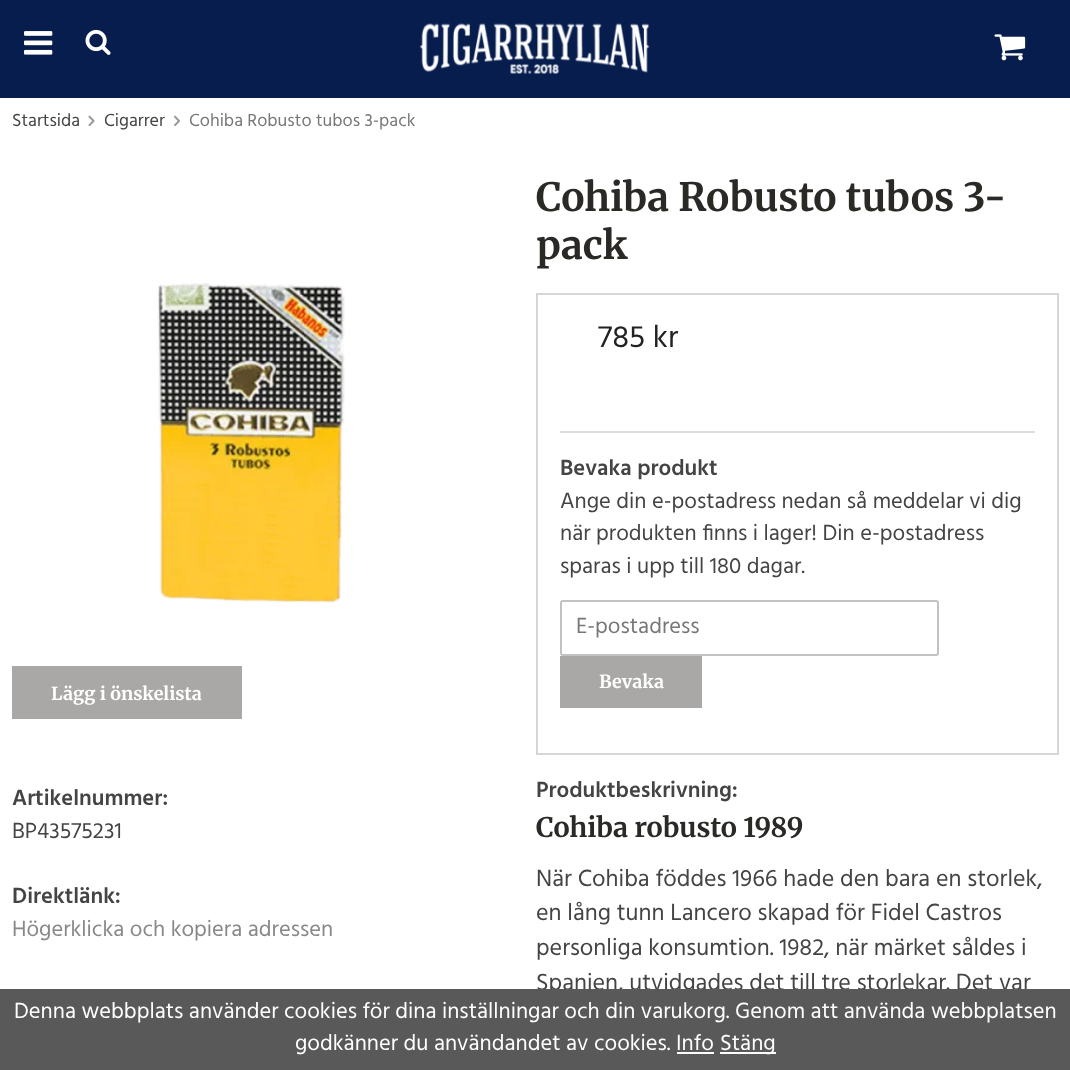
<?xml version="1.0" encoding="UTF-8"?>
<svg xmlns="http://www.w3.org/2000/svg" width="1070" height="1070">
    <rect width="100%" height="100%" fill="#FFFFFF"/>
    <rect x="0" y="0" width="1070" height="98" fill="#071D4E"/>
    <image x="24" y="31" width="29" height="24" href="img_01.png"/>
    <image x="85" y="29" width="26" height="26" href="img_02.png"/>
    <image x="419" y="23" width="231" height="51" href="img_03.png"/>
    <image x="994" y="34" width="32" height="27" href="img_04.png"/>
    <text x="12" y="126" font-family="Hind" font-size="18" fill="#444444">Startsida</text>
    <image x="88" y="115" width="7" height="12" href="img_05.png"/>
    <text x="104" y="126" font-family="Hind" font-size="18" fill="#444444">Cigarrer</text>
    <image x="174" y="115" width="6" height="11" href="img_06.png"/>
    <text x="189" y="126" font-family="Hind" font-size="18" fill="#777777">Cohiba Robusto tubos 3-pack</text>
    <image x="157" y="283" width="188" height="320" href="img_07.png"/>
    <text font-family="Merriweather" font-size="39" font-weight="700" fill="#2B2926">
        <tspan x="536" y="211">Cohiba Robusto tubos 3-</tspan>
        <tspan x="536" y="259">pack</tspan>
    </text>
    <rect x="537" y="294" width="521" height="460" fill="none" stroke="#D8D6D4" stroke-width="2"/>
    <text x="598" y="347" font-family="Hind" font-size="31.5" fill="#222222">785 kr</text>
    <rect x="560" y="431" width="475" height="2" fill="#DCDCDC"/>
    <text x="560" y="475" font-family="Hind" font-size="22.5" font-weight="600" fill="#444444">Bevaka produkt</text>
    <text font-family="Hind" font-size="22.5" fill="#444444">
        <tspan x="560" y="508">Ange din e-postadress nedan så meddelar vi dig</tspan>
        <tspan x="560" y="540">när produkten finns i lager! Din e-postadress</tspan>
        <tspan x="560" y="573">sparas i upp till 180 dagar.</tspan>
    </text>
    <rect x="561" y="601" width="377" height="54" rx="2" fill="none" stroke="#C2C2C2" stroke-width="2"/>
    <text x="576" y="633" font-family="Hind" font-size="22.5" fill="#777777">E-postadress</text>
    <rect x="560" y="656" width="142" height="52" fill="#A9A8A6"/>
    <text x="599" y="688" font-family="Merriweather" font-size="18" font-weight="700" fill="#FFFFFF">Bevaka</text>
    <text x="536" y="797" font-family="Hind" font-size="22.5" font-weight="600" fill="#444444">Produktbeskrivning:</text>
    <text x="536" y="837" font-family="Merriweather" font-size="27" font-weight="700" fill="#2B2926">Cohiba robusto 1989</text>
    <text font-family="Hind" font-size="24" fill="#444444">
        <tspan x="536" y="886">När Cohiba föddes 1966 hade den bara en storlek,</tspan>
        <tspan x="536" y="920">en lång tunn Lancero skapad för Fidel Castros</tspan>
        <tspan x="536" y="955">personliga konsumtion. 1982, när märket såldes i</tspan>
        <tspan x="536" y="990">Spanien, utvidgades det till tre storlekar. Det var</tspan>
    </text>
    <rect x="12" y="666" width="230" height="53" fill="#A9A8A6"/>
    <text x="51" y="700" font-family="Merriweather" font-size="18" font-weight="700" fill="#FFFFFF">Lägg i önskelista</text>
    <text x="12" y="805" font-family="Hind" font-size="22.5" font-weight="600" fill="#444444">Artikelnummer:</text>
    <text x="12" y="838" font-family="Hind" font-size="22.5" fill="#444444">BP43575231</text>
    <text x="12" y="903" font-family="Hind" font-size="22.5" font-weight="600" fill="#444444">Direktlänk:</text>
    <text x="12" y="936" font-family="Hind" font-size="22.5" fill="#888888">Högerklicka och kopiera adressen</text>
    <rect x="0" y="989" width="1070" height="81" fill="#595959"/>
    <text x="14" y="1018" font-family="Hind" font-size="22.5" fill="#FFFFFF">Denna webbplats använder cookies för dina inställningar och din varukorg. Genom att använda webbplatsen</text>
    <text x="295" y="1050" font-family="Hind" font-size="22.5" fill="#FFFFFF">godkänner du användandet av cookies. Info</text>
    <rect x="720" y="1052" width="56" height="2" fill="#FFFFFF"/>
    <text x="720" y="1050" font-family="Hind" font-size="22.5" fill="#FFFFFF">Stäng</text>
    <rect x="677" y="1052" width="37" height="2" fill="#FFFFFF"/>
</svg>
